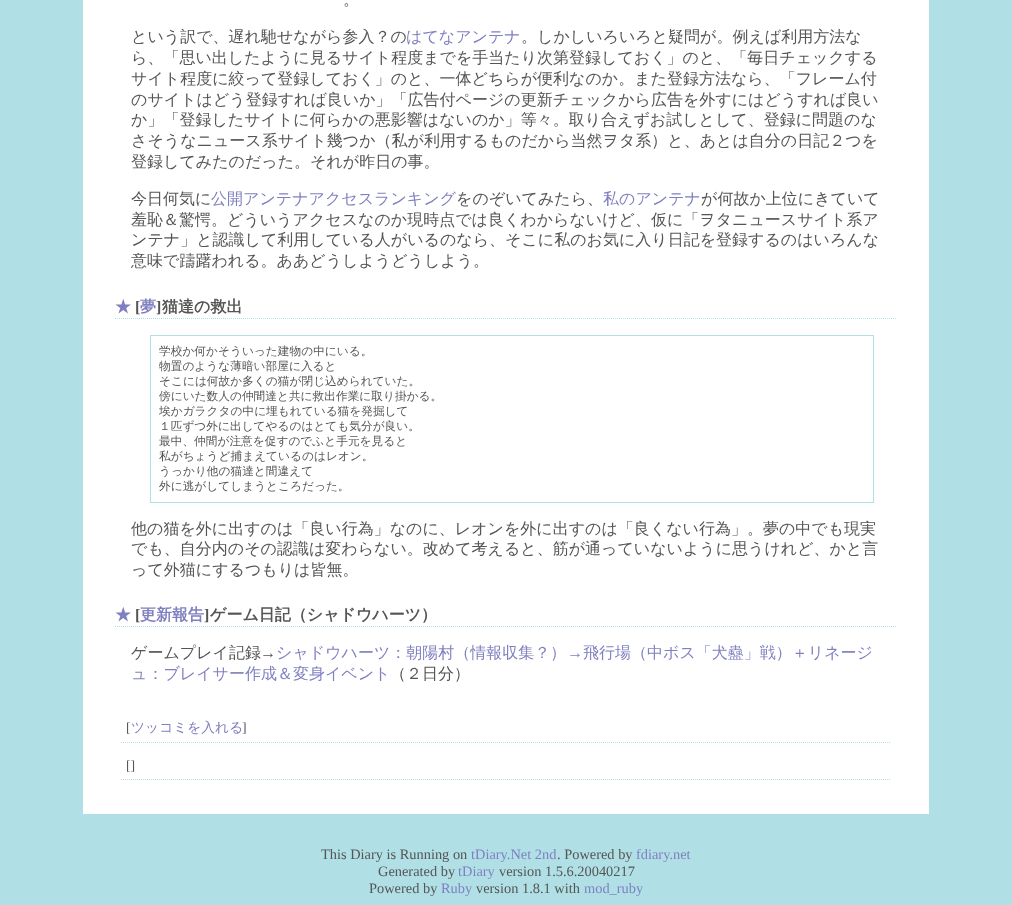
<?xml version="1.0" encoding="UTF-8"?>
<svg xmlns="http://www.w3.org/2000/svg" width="1012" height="905">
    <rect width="100%" height="100%" fill="#B0E0E6"/>
    <rect x="83" y="0" width="846" height="814" fill="#FFFFFF"/>
    <text x="343" y="5" font-family="WenQuanYi Zen Hei" font-size="16" font-weight="500" fill="#555555">。</text>
    <text x="131" y="42" font-family="WenQuanYi Zen Hei" font-size="16" font-weight="500" fill="#555555">という訳で、遅れ馳せながら参入？の</text>
    <text x="406" y="42" font-family="WenQuanYi Zen Hei" font-size="16" font-weight="500" fill="#8080C0">はてなアンテナ</text>
    <text x="521" y="42" font-family="WenQuanYi Zen Hei" font-size="16" font-weight="500" fill="#555555">。しかしいろいろと疑問が。例えば利用方法な</text>
    <text font-family="WenQuanYi Zen Hei" font-size="16" font-weight="500" fill="#555555">
        <tspan x="131" y="63">ら、「思い出したように見るサイト程度までを手当たり次第登録しておく」のと、「毎日チェックする</tspan>
        <tspan x="131" y="84">サイト程度に絞って登録しておく」のと、一体どちらが便利なのか。また登録方法なら、「フレーム付</tspan>
        <tspan x="131" y="105">のサイトはどう登録すれば良いか」「広告付ページの更新チェックから広告を外すにはどうすれば良い</tspan>
        <tspan x="131" y="125">か」「登録したサイトに何らかの悪影響はないのか」等々。取り合えずお試しとして、登録に問題のな</tspan>
        <tspan x="131" y="146">さそうなニュース系サイト幾つか（私が利用するものだから当然ヲタ系）と、あとは自分の日記２つを</tspan>
        <tspan x="131" y="167">登録してみたのだった。それが昨日の事。</tspan>
    </text>
    <text x="131" y="204" font-family="WenQuanYi Zen Hei" font-size="16" font-weight="500" fill="#555555">今日何気に</text>
    <text x="211" y="204" font-family="WenQuanYi Zen Hei" font-size="16" font-weight="500" fill="#8080C0">公開アンテナアクセスランキング</text>
    <text x="456" y="204" font-family="WenQuanYi Zen Hei" font-size="16" font-weight="500" fill="#555555">をのぞいてみたら、</text>
    <text x="603" y="204" font-family="WenQuanYi Zen Hei" font-size="16" font-weight="500" fill="#8080C0">私のアンテナ</text>
    <text x="701" y="204" font-family="WenQuanYi Zen Hei" font-size="16" font-weight="500" fill="#555555">が何故か上位にきていて</text>
    <text font-family="WenQuanYi Zen Hei" font-size="16" font-weight="500" fill="#555555">
        <tspan x="131" y="225">羞恥＆驚愕。どういうアクセスなのか現時点では良くわからないけど、仮に「ヲタニュースサイト系ア</tspan>
        <tspan x="131" y="245">ンテナ」と認識して利用している人がいるのなら、そこに私のお気に入り日記を登録するのはいろんな</tspan>
        <tspan x="131" y="266">意味で躊躇われる。ああどうしようどうしよう。</tspan>
    </text>
    <path d="M 115 318.5 H 897" fill="none" stroke="#B0E0E6" stroke-dasharray="1 1"/>
    <text x="115" y="312" font-family="WenQuanYi Zen Hei" font-size="16" font-weight="700" fill="#8080C0">★</text>
    <text x="135" y="312" font-family="Liberation Serif" font-size="16" font-weight="700" fill="#555555">[</text>
    <text x="140" y="312" font-family="WenQuanYi Zen Hei" font-size="16" font-weight="700" fill="#8080C0">夢</text>
    <text x="156" y="312" font-family="Liberation Serif" font-size="16" font-weight="700" fill="#555555">]</text>
    <text x="162" y="312" font-family="WenQuanYi Zen Hei" font-size="16" font-weight="700" fill="#555555">猫達の救出</text>
    <rect x="150.5" y="335.5" width="723" height="167" fill="none" stroke="#B0E0E6"/>
    <text font-family="WenQuanYi Zen Hei" font-size="11.7" font-weight="500" fill="#555555">
        <tspan x="159" y="355">学校か何かそういった建物の中にいる。</tspan>
        <tspan x="159" y="370">物置のような薄暗い部屋に入ると</tspan>
        <tspan x="159" y="385">そこには何故か多くの猫が閉じ込められていた。</tspan>
        <tspan x="159" y="400">傍にいた数人の仲間達と共に救出作業に取り掛かる。</tspan>
        <tspan x="159" y="415">埃かガラクタの中に埋もれている猫を発掘して</tspan>
        <tspan x="159" y="430">１匹ずつ外に出してやるのはとても気分が良い。</tspan>
        <tspan x="159" y="445">最中、仲間が注意を促すのでふと手元を見ると</tspan>
        <tspan x="159" y="460">私がちょうど捕まえているのはレオン。</tspan>
        <tspan x="159" y="475">うっかり他の猫達と間違えて</tspan>
        <tspan x="159" y="490">外に逃がしてしまうところだった。</tspan>
    </text>
    <text font-family="WenQuanYi Zen Hei" font-size="16" font-weight="500" fill="#555555">
        <tspan x="131" y="534">他の猫を外に出すのは「良い行為」なのに、レオンを外に出すのは「良くない行為」。夢の中でも現実</tspan>
        <tspan x="131" y="554">でも、自分内のその認識は変わらない。改めて考えると、筋が通っていないように思うけれど、かと言</tspan>
        <tspan x="131" y="575">って外猫にするつもりは皆無。</tspan>
    </text>
    <path d="M 115 626.5 H 897" fill="none" stroke="#B0E0E6" stroke-dasharray="1 1"/>
    <text x="115" y="620" font-family="WenQuanYi Zen Hei" font-size="16" font-weight="700" fill="#8080C0">★</text>
    <text x="135" y="620" font-family="Liberation Serif" font-size="16" font-weight="700" fill="#555555">[</text>
    <text x="140" y="620" font-family="WenQuanYi Zen Hei" font-size="16" font-weight="700" fill="#8080C0">更新報告</text>
    <text x="204" y="620" font-family="Liberation Serif" font-size="16" font-weight="700" fill="#555555">]</text>
    <text x="210" y="620" font-family="WenQuanYi Zen Hei" font-size="16" font-weight="700" fill="#555555">ゲーム日記（シャドウハーツ）</text>
    <text x="131" y="658" font-family="WenQuanYi Zen Hei" font-size="16" font-weight="500" fill="#555555">ゲームプレイ記録</text>
    <text x="260" y="658" font-family="Liberation Serif" font-size="16" fill="#555555">→</text>
    <text x="276" y="658" font-family="WenQuanYi Zen Hei" font-size="16" font-weight="500" fill="#8080C0">シャドウハーツ：朝陽村（情報収集？）</text>
    <text x="567" y="658" font-family="Liberation Serif" font-size="16" fill="#8080C0">→</text>
    <text x="583" y="658" font-family="WenQuanYi Zen Hei" font-size="16" font-weight="500" fill="#8080C0">飛行場（中ボス「犬蠱」戦）＋リネージ</text>
    <text x="131" y="679" font-family="WenQuanYi Zen Hei" font-size="16" font-weight="500" fill="#8080C0">ュ：ブレイサー作成＆変身イベント</text>
    <text x="390" y="679" font-family="WenQuanYi Zen Hei" font-size="16" font-weight="500" fill="#555555">（２日分）</text>
    <path d="M 121 742.5 H 891" fill="none" stroke="#B0E0E6" stroke-dasharray="1 1"/>
    <text x="126" y="732" font-family="Liberation Serif" font-size="13.75" fill="#555555">[</text>
    <text x="131" y="732" font-family="WenQuanYi Zen Hei" font-size="13.75" font-weight="500" fill="#8080C0">ツッコミを入れる</text>
    <text x="242" y="732" font-family="Liberation Serif" font-size="13.75" fill="#555555">]</text>
    <path d="M 121 779.5 H 891" fill="none" stroke="#B0E0E6" stroke-dasharray="1 1"/>
    <text x="126" y="770" font-family="Liberation Serif" font-size="13.75" fill="#555555">[]</text>
    <text x="321" y="859" font-family="Liberation Serif" font-size="14.4" fill="#555555">This Diary is Running on</text>
    <text x="471" y="859" font-family="Liberation Serif" font-size="14.4" fill="#8080C0">tDiary.Net 2nd</text>
    <text x="557" y="859" font-family="Liberation Serif" font-size="14.4" fill="#555555">. Powered by</text>
    <text x="636" y="859" font-family="Liberation Serif" font-size="14.4" fill="#8080C0">fdiary.net</text>
    <text x="378" y="876" font-family="Liberation Serif" font-size="14.4" fill="#555555">Generated by</text>
    <text x="458" y="876" font-family="Liberation Serif" font-size="14.4" fill="#8080C0">tDiary</text>
    <text x="499" y="876" font-family="Liberation Serif" font-size="14.4" fill="#555555">version 1.5.6.20040217</text>
    <text x="369" y="893" font-family="Liberation Serif" font-size="14.4" fill="#555555">Powered by</text>
    <text x="441" y="893" font-family="Liberation Serif" font-size="14.4" fill="#8080C0">Ruby</text>
    <text x="476" y="893" font-family="Liberation Serif" font-size="14.4" fill="#555555">version 1.8.1 with</text>
    <text x="584" y="893" font-family="Liberation Serif" font-size="14.4" fill="#8080C0">mod_ruby</text>
</svg>
